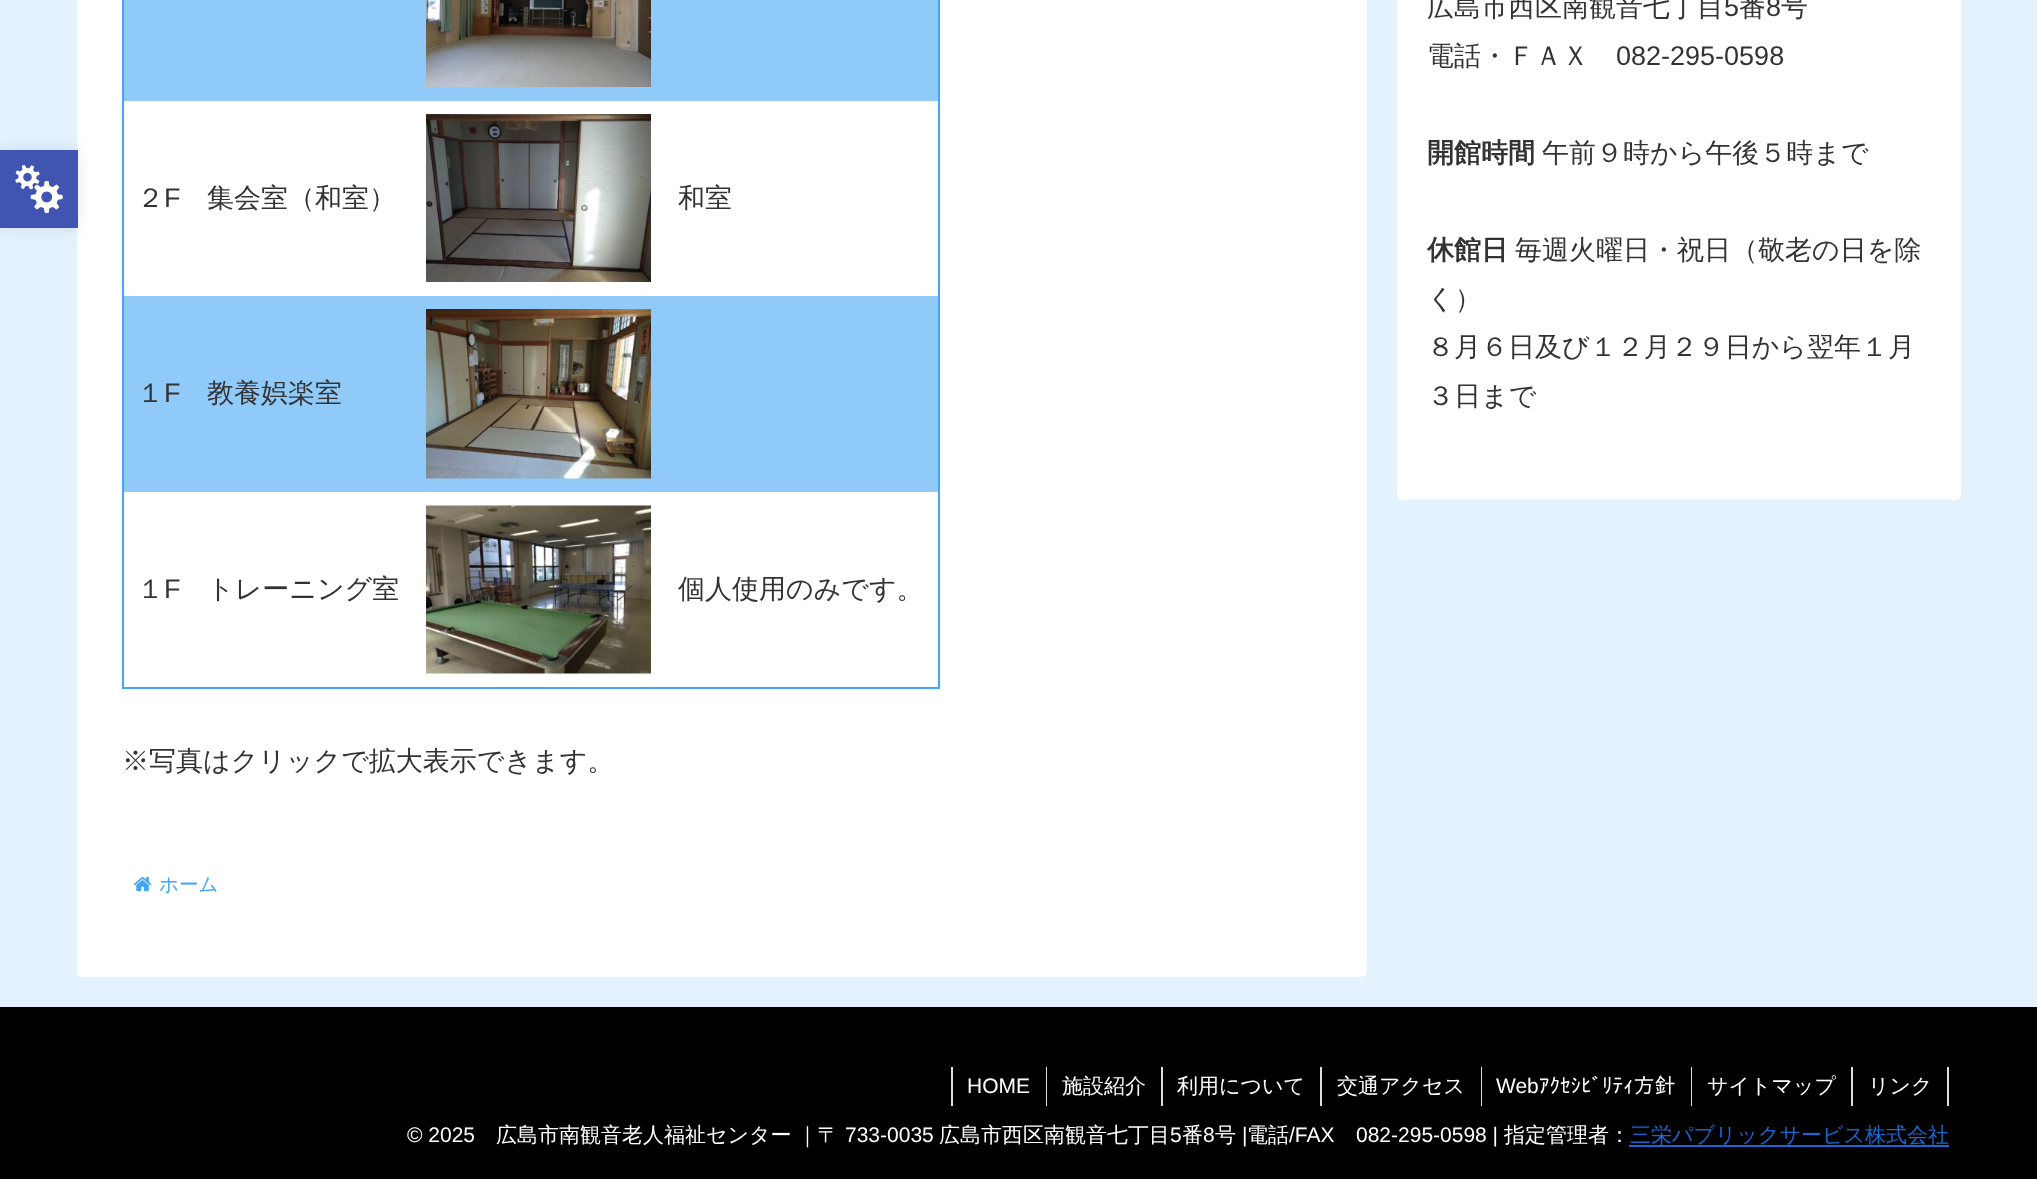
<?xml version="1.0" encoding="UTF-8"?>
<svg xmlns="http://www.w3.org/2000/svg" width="2037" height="1179">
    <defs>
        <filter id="blur1" x="-50%" y="-200%" width="200%" height="500%"><feGaussianBlur stdDeviation="7.5"/></filter>
    </defs>
    <rect width="100%" height="100%" fill="#E3F2FD"/>
    <rect x="77" y="-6" width="1290" height="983" rx="6" fill="#FFFFFF"/>
    <rect x="0" y="150" width="78" height="78" fill="#000000" fill-opacity="0.1" filter="url(#blur1)"/>
    <rect x="0" y="150" width="78" height="78" fill="#4054B2"/>
    <image x="15" y="165" width="48" height="48" href="img_01.png"/>
    <rect x="938" y="0" width="2" height="689" fill="#42A5F5"/>
    <rect x="122" y="687" width="817" height="2" fill="#42A5F5"/>
    <rect x="122" y="0" width="2" height="689" fill="#42A5F5"/>
    <rect x="124" y="0" width="814" height="101" fill="#90CAF9"/>
    <image x="426" y="0" width="225" height="87" href="img_02.png"/>
    <text x="137" y="207" font-family="WenQuanYi Zen Hei" font-size="27" font-weight="500" fill="#333333">２</text>
    <text x="164" y="207" font-family="Liberation Sans" font-size="27" fill="#333333">F</text>
    <text x="207" y="207" font-family="WenQuanYi Zen Hei" font-size="27" font-weight="500" fill="#333333">集会室（和室）</text>
    <image x="426" y="114" width="225" height="168" href="img_03.png"/>
    <text x="678" y="207" font-family="WenQuanYi Zen Hei" font-size="27" font-weight="500" fill="#333333">和室</text>
    <rect x="124" y="296" width="814" height="196" fill="#90CAF9"/>
    <text x="137" y="402" font-family="WenQuanYi Zen Hei" font-size="27" font-weight="500" fill="#333333">１</text>
    <text x="164" y="402" font-family="Liberation Sans" font-size="27" fill="#333333">F</text>
    <text x="207" y="402" font-family="WenQuanYi Zen Hei" font-size="27" font-weight="500" fill="#333333">教養娯楽室</text>
    <image x="426" y="309" width="225" height="170" href="img_04.png"/>
    <text x="137" y="598" font-family="WenQuanYi Zen Hei" font-size="27" font-weight="500" fill="#333333">１</text>
    <text x="164" y="598" font-family="Liberation Sans" font-size="27" fill="#333333">F</text>
    <text x="207" y="598" font-family="WenQuanYi Zen Hei" font-size="27" font-weight="500" fill="#333333">トレーニング室</text>
    <image x="426" y="505" width="225" height="169" href="img_05.png"/>
    <text x="678" y="598" font-family="WenQuanYi Zen Hei" font-size="27" font-weight="500" fill="#333333">個人使用のみです。</text>
    <text x="122" y="770" font-family="WenQuanYi Zen Hei" font-size="27" font-weight="500" fill="#333333">※写真はクリックで拡大表示できます。</text>
    <image x="133" y="877" width="19" height="14" href="img_06.png"/>
    <text x="159" y="891" font-family="WenQuanYi Zen Hei" font-size="19.5" font-weight="500" fill="#42A5F5">ホーム</text>
    <rect x="1397" y="-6" width="564" height="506" rx="6" fill="#FFFFFF"/>
    <text x="1427" y="16" font-family="WenQuanYi Zen Hei" font-size="27" font-weight="500" fill="#333333">広島市西区南観音七丁目</text>
    <text x="1724" y="16" font-family="Liberation Sans" font-size="27" fill="#333333">5</text>
    <text x="1739" y="16" font-family="WenQuanYi Zen Hei" font-size="27" font-weight="500" fill="#333333">番</text>
    <text x="1766" y="16" font-family="Liberation Sans" font-size="27" fill="#333333">8</text>
    <text x="1781" y="16" font-family="WenQuanYi Zen Hei" font-size="27" font-weight="500" fill="#333333">号</text>
    <text x="1427" y="65" font-family="WenQuanYi Zen Hei" font-size="27" font-weight="500" fill="#333333">電話・ＦＡＸ</text>
    <text x="1616" y="65" font-family="Liberation Sans" font-size="27" fill="#333333">082-295-0598</text>
    <text x="1427" y="162" font-family="WenQuanYi Zen Hei" font-size="27" font-weight="700" fill="#333333">開館時間</text>
    <text x="1542" y="162" font-family="WenQuanYi Zen Hei" font-size="27" font-weight="500" fill="#333333">午前９時から午後５時まで</text>
    <text x="1427" y="259" font-family="WenQuanYi Zen Hei" font-size="27" font-weight="700" fill="#333333">休館日</text>
    <text x="1515" y="259" font-family="WenQuanYi Zen Hei" font-size="27" font-weight="500" fill="#333333">毎週火曜日・祝日（敬老の日を除</text>
    <text font-family="WenQuanYi Zen Hei" font-size="27" font-weight="500" fill="#333333">
        <tspan x="1427" y="308">く）</tspan>
        <tspan x="1427" y="356">８月６日及び１２月２９日から翌年１月</tspan>
        <tspan x="1427" y="405">３日まで</tspan>
    </text>
    <rect x="0" y="1007" width="2037" height="172" fill="#000000"/>
    <rect x="951" y="1067" width="2" height="39" fill="#DDDDDD"/>
    <text x="967" y="1093" font-family="Liberation Sans" font-size="21" fill="#FFFFFF">HOME</text>
    <rect x="1046" y="1067" width="1" height="39" fill="#DDDDDD"/>
    <text x="1062" y="1093" font-family="WenQuanYi Zen Hei" font-size="21" font-weight="500" fill="#FFFFFF">施設紹介</text>
    <rect x="1161" y="1067" width="2" height="39" fill="#DDDDDD"/>
    <text x="1177" y="1093" font-family="WenQuanYi Zen Hei" font-size="21" font-weight="500" fill="#FFFFFF">利用について</text>
    <rect x="1320" y="1067" width="2" height="39" fill="#DDDDDD"/>
    <text x="1337" y="1093" font-family="WenQuanYi Zen Hei" font-size="21" font-weight="500" fill="#FFFFFF">交通アクセス</text>
    <rect x="1481" y="1067" width="1" height="39" fill="#DDDDDD"/>
    <text x="1496" y="1093" font-family="Liberation Sans" font-size="21" fill="#FFFFFF">Web</text>
    <text x="1539" y="1093" font-family="IPAPGothic" font-size="21" fill="#FFFFFF">ｱｸｾｼﾋﾞﾘﾃｨ方針</text>
    <rect x="1691" y="1067" width="1" height="39" fill="#DDDDDD"/>
    <text x="1707" y="1093" font-family="WenQuanYi Zen Hei" font-size="21" font-weight="500" fill="#FFFFFF">サイトマップ</text>
    <rect x="1947" y="1067" width="2" height="39" fill="#DDDDDD"/>
    <rect x="1851" y="1067" width="2" height="39" fill="#DDDDDD"/>
    <text x="1868" y="1093" font-family="WenQuanYi Zen Hei" font-size="21" font-weight="500" fill="#FFFFFF">リンク</text>
    <text x="407" y="1142" font-family="Liberation Sans" font-size="21" fill="#FFFFFF">© 2025</text>
    <text x="496" y="1142" font-family="WenQuanYi Zen Hei" font-size="21" font-weight="500" fill="#FFFFFF">広島市南観音老人福祉センター</text>
    <text x="797" y="1142" font-family="WenQuanYi Zen Hei" font-size="21" font-weight="500" fill="#FFFFFF">｜〒</text>
    <text x="845" y="1142" font-family="Liberation Sans" font-size="21" fill="#FFFFFF">733-0035</text>
    <text x="939" y="1142" font-family="WenQuanYi Zen Hei" font-size="21" font-weight="500" fill="#FFFFFF">広島市西区南観音七丁目</text>
    <text x="1170" y="1142" font-family="Liberation Sans" font-size="21" fill="#FFFFFF">5</text>
    <text x="1182" y="1142" font-family="WenQuanYi Zen Hei" font-size="21" font-weight="500" fill="#FFFFFF">番</text>
    <text x="1203" y="1142" font-family="Liberation Sans" font-size="21" fill="#FFFFFF">8</text>
    <text x="1215" y="1142" font-family="WenQuanYi Zen Hei" font-size="21" font-weight="500" fill="#FFFFFF">号</text>
    <text x="1242" y="1142" font-family="Liberation Sans" font-size="21" fill="#FFFFFF">|</text>
    <text x="1247" y="1142" font-family="WenQuanYi Zen Hei" font-size="21" font-weight="500" fill="#FFFFFF">電話</text>
    <text x="1289" y="1142" font-family="Liberation Sans" font-size="21" fill="#FFFFFF">/FAX</text>
    <text x="1356" y="1142" font-family="Liberation Sans" font-size="21" fill="#FFFFFF">082-295-0598 |</text>
    <text x="1504" y="1142" font-family="WenQuanYi Zen Hei" font-size="21" font-weight="500" fill="#FFFFFF">指定管理者：</text>
    <rect x="1629" y="1145" width="320" height="2" fill="#1967D2"/>
    <text x="1630" y="1142" font-family="WenQuanYi Zen Hei" font-size="21" font-weight="500" fill="#1967D2">三栄パブリックサービス株式会社</text>
</svg>
